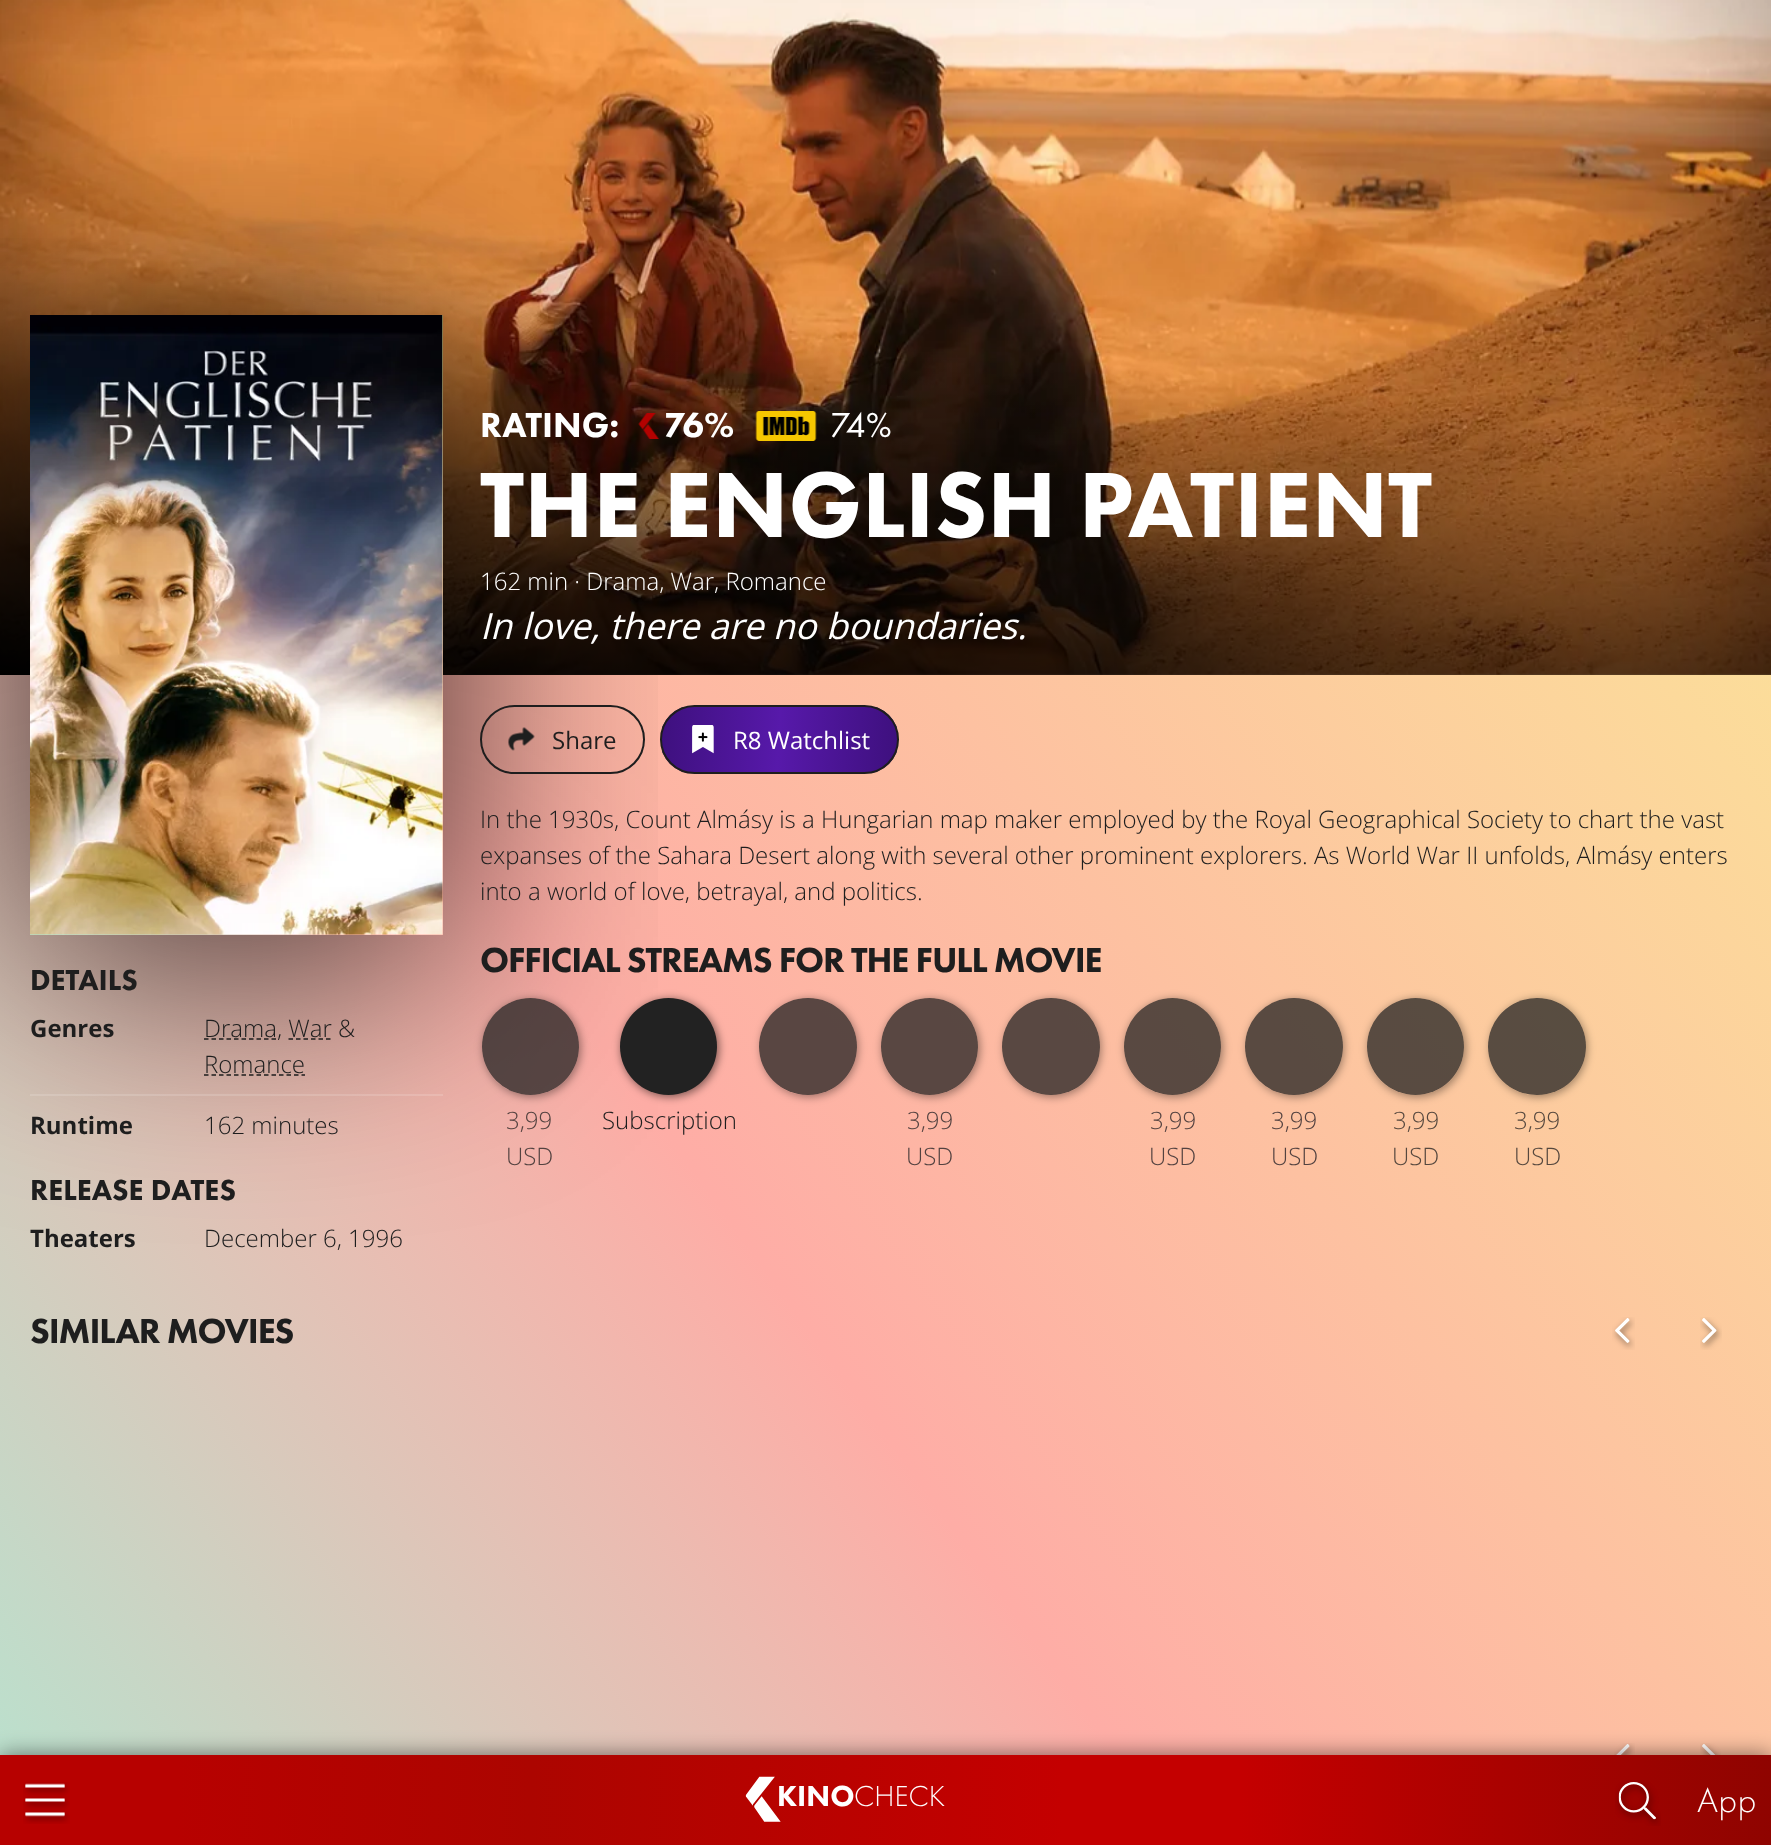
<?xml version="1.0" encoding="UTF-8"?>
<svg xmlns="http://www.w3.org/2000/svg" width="1771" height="1845">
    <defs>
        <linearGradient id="g1" gradientUnits="userSpaceOnUse" x1="-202" y1="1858" x2="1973" y2="278"><stop offset="0" stop-color="#ABECD6"/><stop offset="0.42" stop-color="#FEADA6"/><stop offset="1" stop-color="#FBED96"/></linearGradient>
        <linearGradient id="g2" gradientUnits="userSpaceOnUse" x1="832" y1="777" x2="940" y2="-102"><stop offset="0" stop-color="#000000"/><stop offset="0.5" stop-color="#000000" stop-opacity="0"/></linearGradient>
        <filter id="blur1" x="-50%" y="-200%" width="200%" height="500%"><feGaussianBlur stdDeviation="120"/></filter>
        <linearGradient id="g3" gradientUnits="userSpaceOnUse" x1="-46" y1="830" x2="519" y2="420"><stop offset="0" stop-color="#ABECD6"/><stop offset="0.42" stop-color="#FEADA6"/><stop offset="1" stop-color="#FBED96"/></linearGradient>
        <clipPath id="clip1"><rect x="660" y="705" width="239" height="69" rx="34.5"/></clipPath>
        <linearGradient id="g4" gradientUnits="userSpaceOnUse" x1="660" y1="733" x2="898" y2="746"><stop offset="0" stop-color="#3E107E"/><stop offset="0.5" stop-color="#5719AA"/><stop offset="1" stop-color="#3E107E"/></linearGradient>
        <clipPath id="clip2"><path d="M 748 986 H 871 V 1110 H 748 Z M 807.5 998 H 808.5 C 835.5 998 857 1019.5 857 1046.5 C 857 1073.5 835.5 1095 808.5 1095 H 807.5 C 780.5 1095 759 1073.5 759 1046.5 C 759 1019.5 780.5 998 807.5 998 Z" clip-rule="evenodd"/></clipPath>
        <filter id="blur2" x="-50%" y="-200%" width="200%" height="500%"><feGaussianBlur stdDeviation="4"/></filter>
        <clipPath id="clip3"><path d="M 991 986 H 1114 V 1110 H 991 Z M 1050.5 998 H 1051.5 C 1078.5 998 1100 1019.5 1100 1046.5 C 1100 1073.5 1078.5 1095 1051.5 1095 H 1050.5 C 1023.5 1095 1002 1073.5 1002 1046.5 C 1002 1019.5 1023.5 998 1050.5 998 Z" clip-rule="evenodd"/></clipPath>
        <clipPath id="clip4"><path d="M 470 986 H 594 V 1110 H 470 Z M 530.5 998 C 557.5 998 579 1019.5 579 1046.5 C 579 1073.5 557.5 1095 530.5 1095 C 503.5 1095 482 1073.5 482 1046.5 C 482 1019.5 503.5 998 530.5 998 Z" clip-rule="evenodd"/></clipPath>
        <clipPath id="clip5"><path d="M 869 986 H 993 V 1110 H 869 Z M 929.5 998 C 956.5 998 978 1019.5 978 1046.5 C 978 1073.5 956.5 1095 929.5 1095 C 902.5 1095 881 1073.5 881 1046.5 C 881 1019.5 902.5 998 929.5 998 Z" clip-rule="evenodd"/></clipPath>
        <clipPath id="clip6"><path d="M 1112 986 H 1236 V 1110 H 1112 Z M 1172.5 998 C 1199.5 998 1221 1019.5 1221 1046.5 C 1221 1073.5 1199.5 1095 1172.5 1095 C 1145.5 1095 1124 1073.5 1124 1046.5 C 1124 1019.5 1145.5 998 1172.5 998 Z" clip-rule="evenodd"/></clipPath>
        <clipPath id="clip7"><path d="M 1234 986 H 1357 V 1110 H 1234 Z M 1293.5 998 H 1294.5 C 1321.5 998 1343 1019.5 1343 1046.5 C 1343 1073.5 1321.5 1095 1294.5 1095 H 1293.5 C 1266.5 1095 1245 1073.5 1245 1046.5 C 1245 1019.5 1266.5 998 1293.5 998 Z" clip-rule="evenodd"/></clipPath>
        <clipPath id="clip8"><path d="M 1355 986 H 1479 V 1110 H 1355 Z M 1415.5 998 C 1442.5 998 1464 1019.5 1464 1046.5 C 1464 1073.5 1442.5 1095 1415.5 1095 C 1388.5 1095 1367 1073.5 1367 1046.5 C 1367 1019.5 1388.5 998 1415.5 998 Z" clip-rule="evenodd"/></clipPath>
        <clipPath id="clip9"><path d="M 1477 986 H 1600 V 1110 H 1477 Z M 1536.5 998 H 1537.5 C 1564.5 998 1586 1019.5 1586 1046.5 C 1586 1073.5 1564.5 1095 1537.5 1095 H 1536.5 C 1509.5 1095 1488 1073.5 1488 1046.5 C 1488 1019.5 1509.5 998 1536.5 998 Z" clip-rule="evenodd"/></clipPath>
        <filter id="blur3" x="-50%" y="-200%" width="200%" height="500%"><feGaussianBlur stdDeviation="11"/></filter>
        <linearGradient id="g5" gradientUnits="userSpaceOnUse" x1="-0.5" y1="1785" x2="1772" y2="1815"><stop offset="0.1" stop-color="#B70100"/><stop offset="0.3" stop-color="#AC0500"/><stop offset="0.6" stop-color="#C40000"/><stop offset="0.7" stop-color="#C40000"/><stop offset="1" stop-color="#8F0400"/></linearGradient>
    </defs>
    <rect width="100%" height="100%" fill="#FFFFFF"/>
    <rect x="0" y="673" width="1771" height="1082" fill="url(#g1)"/>
    <image x="0" y="0" width="1771" height="675" href="img_01.png"/>
    <rect x="0" y="238" width="1771" height="437" fill="url(#g2)"/>
    <rect x="26" y="335" width="421" height="628" fill="#000000" fill-opacity="0.75" filter="url(#blur1)"/>
    <rect x="30" y="315" width="413" height="620" fill="url(#g3)"/>
    <image x="30" y="315" width="413" height="620" href="img_02.png"/>
    <text x="480" y="437" font-family="'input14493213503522'" font-size="36" fill="#FFFFFF">RATING:</text>
    <image x="638" y="413" width="22" height="26" href="img_03.png"/>
    <text x="664" y="437" font-family="'input14493213503522'" font-size="36" fill="#FFFFFF">76%</text>
    <image x="755" y="411" width="62" height="30" href="img_04.png"/>
    <text x="830" y="437" font-family="Futura PT" font-size="36" fill="#FFFFFF">74%</text>
    <text x="480" y="537" font-family="'input14493213503522'" font-size="96" fill="#FFFFFF">THE ENGLISH PATIENT</text>
    <text x="480" y="590" font-family="Open Sans" font-size="24" font-weight="300" fill="#FFFFFF">162 min · Drama, War, Romance</text>
    <text x="480" y="639" font-family="Open Sans" font-size="36" font-style="italic" fill="#FFFFFF">In love, there are no boundaries.</text>
    <text x="30" y="990" font-family="'input14493213503522'" font-size="30" fill="#1E1E1E">DETAILS</text>
    <text x="30" y="1037" font-family="Open Sans" font-size="24" font-weight="700" fill="#1E1E1E">Genres</text>
    <path d="M 204 1039 H 277" fill="none" stroke="#1E1E1E" stroke-width="1.5" stroke-dasharray="4.5 3"/>
    <text x="204" y="1037" font-family="Open Sans" font-size="24" font-weight="300" fill="#1E1E1E">Drama, War &amp;</text>
    <path d="M 288.5 1039 H 332" fill="none" stroke="#1E1E1E" stroke-width="1.5" stroke-dasharray="4.5 3"/>
    <text x="204" y="1073" font-family="Open Sans" font-size="24" font-weight="300" fill="#1E1E1E">Romance</text>
    <path d="M 204 1075 H 305" fill="none" stroke="#1E1E1E" stroke-width="1.5" stroke-dasharray="4.5 3"/>
    <rect x="30" y="1094" width="413" height="2" fill="#FFFFFF" fill-opacity="0.15"/>
    <text x="30" y="1134" font-family="Open Sans" font-size="24" font-weight="700" fill="#1E1E1E">Runtime</text>
    <text x="204" y="1134" font-family="Open Sans" font-size="24" font-weight="300" fill="#1E1E1E">162 minutes</text>
    <text x="30" y="1200" font-family="'input14493213503522'" font-size="30" fill="#1E1E1E">RELEASE DATES</text>
    <text x="30" y="1247" font-family="Open Sans" font-size="24" font-weight="700" fill="#1E1E1E">Theaters</text>
    <text x="204" y="1247" font-family="Open Sans" font-size="24" font-weight="300" fill="#1E1E1E">December 6, 1996</text>
    <rect x="481" y="706" width="163" height="67" rx="33.5" fill="none" stroke="#1E1E1E" stroke-width="2"/>
    <image x="508" y="727" width="27" height="24" href="img_05.png"/>
    <text x="552" y="749" font-family="Open Sans" font-size="24" fill="#1E1E1E">Share</text>
    <g clip-path="url(#clip1)">
        <rect x="662" y="707" width="235" height="66" fill="url(#g4)"/>
    </g>
    <rect x="661" y="706" width="237" height="67" rx="33.5" fill="none" stroke="#1E1E1E" stroke-width="2"/>
    <image x="692" y="725" width="22" height="29" href="img_06.png"/>
    <text x="733" y="749" font-family="Open Sans" font-size="24" fill="#FFFFFF">R8 Watchlist</text>
    <text font-family="Open Sans" font-size="24" font-weight="300" fill="#1E1E1E">
        <tspan x="480" y="828">In the 1930s, Count Almásy is a Hungarian map maker employed by the Royal Geographical Society to chart the vast</tspan>
        <tspan x="480" y="864">expanses of the Sahara Desert along with several other prominent explorers. As World War II unfolds, Almásy enters</tspan>
        <tspan x="480" y="900">into a world of love, betrayal, and politics.</tspan>
    </text>
    <text x="480" y="972" font-family="'input14493213503522'" font-size="36" letter-spacing="-1.1" fill="#1E1E1E">OFFICIAL STREAMS FOR THE FULL MOVIE</text>
    <g clip-path="url(#clip2)">
        <rect x="761" y="999" width="97" height="98" rx="48.5" fill="#000000" fill-opacity="0.38" filter="url(#blur2)"/>
    </g>
    <rect x="759" y="998" width="98" height="97" rx="48.5" fill="#222222" fill-opacity="0.75"/>
    <g clip-path="url(#clip3)">
        <rect x="1004" y="999" width="97" height="98" rx="48.5" fill="#000000" fill-opacity="0.38" filter="url(#blur2)"/>
    </g>
    <rect x="1002" y="998" width="98" height="97" rx="48.5" fill="#222222" fill-opacity="0.75"/>
    <g clip-path="url(#clip4)">
        <rect x="483" y="999" width="98" height="98" rx="49" fill="#000000" fill-opacity="0.38" filter="url(#blur2)"/>
    </g>
    <circle cx="530.5" cy="1046.5" r="48.5" fill="#222222" fill-opacity="0.75"/>
    <text font-family="Open Sans" font-size="24" font-weight="300" fill="#534240">
        <tspan x="506" y="1129">3,99</tspan>
        <tspan x="506" y="1165">USD</tspan>
    </text>
    <rect x="621" y="999" width="98" height="98" rx="49" fill="#000000" fill-opacity="0.5" filter="url(#blur2)"/>
    <circle cx="668.5" cy="1046.5" r="48.5" fill="#222222"/>
    <text x="602" y="1129" font-family="Open Sans" font-size="24" font-weight="300" fill="#1E1E1E">Subscription</text>
    <g clip-path="url(#clip5)">
        <rect x="882" y="999" width="98" height="98" rx="49" fill="#000000" fill-opacity="0.38" filter="url(#blur2)"/>
    </g>
    <circle cx="929.5" cy="1046.5" r="48.5" fill="#222222" fill-opacity="0.75"/>
    <text x="907" y="1129" font-family="Open Sans" font-size="24" font-weight="300" fill="#534240">3,99</text>
    <text x="906" y="1165" font-family="Open Sans" font-size="24" font-weight="300" fill="#534240">USD</text>
    <g clip-path="url(#clip6)">
        <rect x="1125" y="999" width="98" height="98" rx="49" fill="#000000" fill-opacity="0.38" filter="url(#blur2)"/>
    </g>
    <circle cx="1172.5" cy="1046.5" r="48.5" fill="#222222" fill-opacity="0.75"/>
    <text x="1150" y="1129" font-family="Open Sans" font-size="24" font-weight="300" fill="#534240">3,99</text>
    <text x="1149" y="1165" font-family="Open Sans" font-size="24" font-weight="300" fill="#534240">USD</text>
    <g clip-path="url(#clip7)">
        <rect x="1247" y="999" width="97" height="98" rx="48.5" fill="#000000" fill-opacity="0.38" filter="url(#blur2)"/>
    </g>
    <rect x="1245" y="998" width="98" height="97" rx="48.5" fill="#222222" fill-opacity="0.75"/>
    <text font-family="Open Sans" font-size="24" font-weight="300" fill="#534240">
        <tspan x="1271" y="1129">3,99</tspan>
        <tspan x="1271" y="1165">USD</tspan>
    </text>
    <g clip-path="url(#clip8)">
        <rect x="1368" y="999" width="98" height="98" rx="49" fill="#000000" fill-opacity="0.38" filter="url(#blur2)"/>
    </g>
    <circle cx="1415.5" cy="1046.5" r="48.5" fill="#222222" fill-opacity="0.75"/>
    <text x="1393" y="1129" font-family="Open Sans" font-size="24" font-weight="300" fill="#56483E">3,99</text>
    <text x="1392" y="1165" font-family="Open Sans" font-size="24" font-weight="300" fill="#56483E">USD</text>
    <g clip-path="url(#clip9)">
        <rect x="1490" y="999" width="97" height="98" rx="48.5" fill="#000000" fill-opacity="0.38" filter="url(#blur2)"/>
    </g>
    <rect x="1488" y="998" width="98" height="97" rx="48.5" fill="#222222" fill-opacity="0.75"/>
    <text font-family="Open Sans" font-size="24" font-weight="300" fill="#56483E">
        <tspan x="1514" y="1129">3,99</tspan>
        <tspan x="1514" y="1165">USD</tspan>
    </text>
    <text x="30" y="1343" font-family="'input14493213503522'" font-size="36" letter-spacing="-1.1" fill="#1E1E1E">SIMILAR MOVIES</text>
    <image x="1612" y="1317" width="23" height="33" href="img_07.png"/>
    <image x="1700" y="1317" width="22" height="33" href="img_08.png"/>
    <image x="1614" y="1743" width="21" height="12" href="img_09.png"/>
    <image x="1700" y="1743" width="21" height="12" href="img_10.png"/>
    <rect x="0" y="1755" width="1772" height="90" fill="#000000" fill-opacity="0.5" filter="url(#blur3)"/>
    <rect x="0" y="1755" width="1771" height="90" fill="url(#g5)"/>
    <image x="23" y="1782" width="47" height="42" href="img_11.png"/>
    <text x="777" y="1806" font-family="'input14493213503522'" font-size="30" fill="#FFFFFF">KINO</text>
    <image x="745" y="1776" width="36" height="46" href="img_12.png"/>
    <text x="854" y="1806" font-family="'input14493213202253'" font-size="30" fill="#FFFFFF">CHECK</text>
    <image x="1615" y="1780" width="46" height="46" href="img_13.png"/>
    <text x="1697" y="1812" font-family="'input14493213202253'" font-size="36" letter-spacing="0.5" fill="#FFFFFF">App</text>
</svg>
